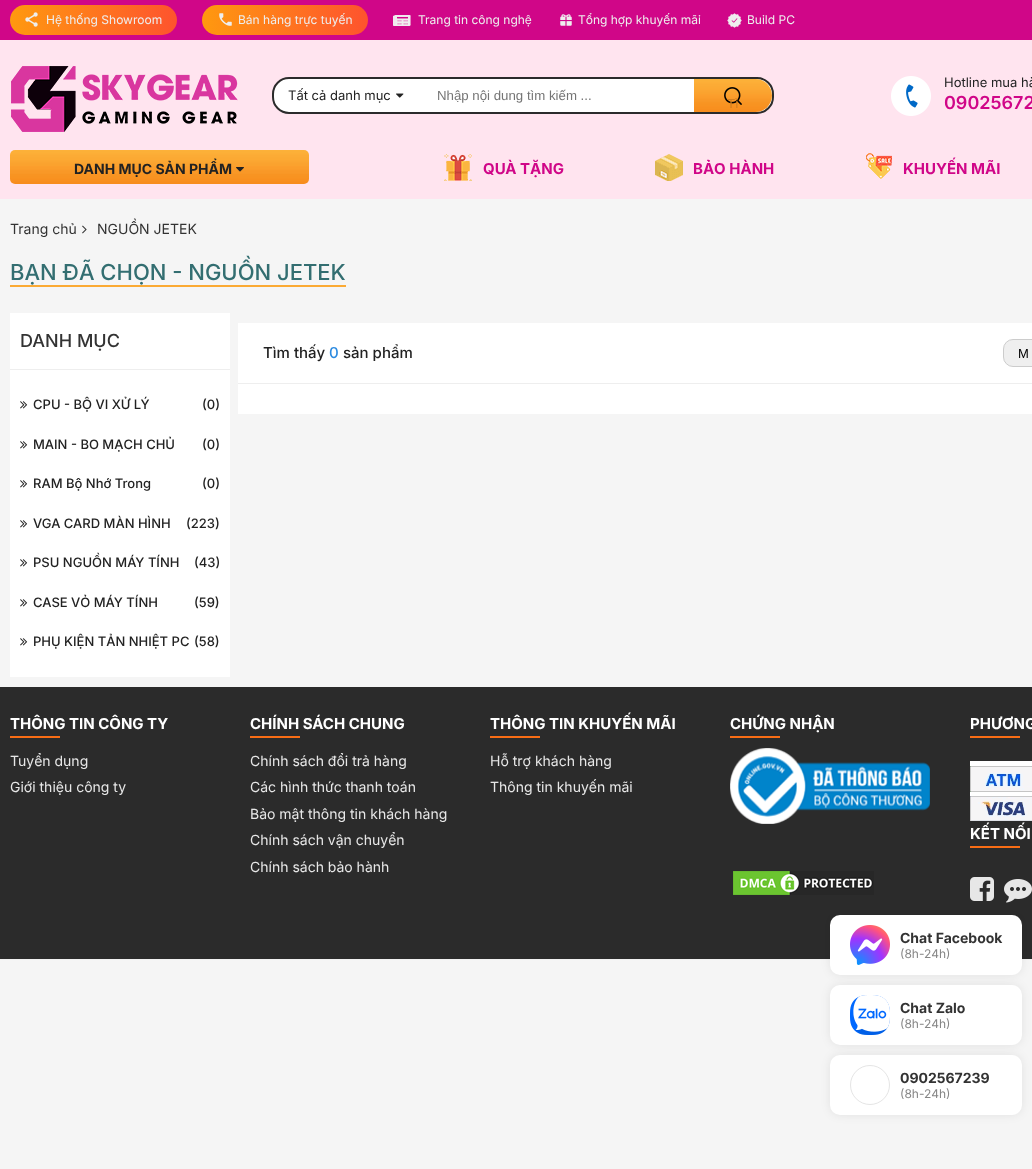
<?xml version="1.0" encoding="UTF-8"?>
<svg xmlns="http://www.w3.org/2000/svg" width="1032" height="1169">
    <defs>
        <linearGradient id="g1" gradientUnits="userSpaceOnUse" x1="10" y1="20" x2="344" y2="20"><stop offset="0" stop-color="#FF990F"/><stop offset="0.5" stop-color="#FE532E"/><stop offset="1" stop-color="#FF990F"/></linearGradient>
        <linearGradient id="g2" gradientUnits="userSpaceOnUse" x1="202" y1="20" x2="534" y2="20"><stop offset="0" stop-color="#FF990F"/><stop offset="0.5" stop-color="#FE532E"/><stop offset="1" stop-color="#FF990F"/></linearGradient>
        <filter id="blur1" x="-50%" y="-200%" width="200%" height="500%"><feGaussianBlur stdDeviation="5"/></filter>
    </defs>
    <rect width="100%" height="100%" fill="#F5F5F5"/>
    <rect x="0" y="0" width="1032" height="40" fill="#D00688"/>
    <rect x="10" y="5" width="167" height="30" rx="15" fill="url(#g1)"/>
    <image x="25" y="12" width="13" height="15" href="img_01.png"/>
    <text x="46" y="24" font-family="Inter" font-size="12" fill="#EEEEEE">Hệ thống Showroom</text>
    <rect x="202" y="5" width="166" height="30" rx="15" fill="url(#g2)"/>
    <image x="219" y="13" width="13" height="13" href="img_02.png"/>
    <text x="238" y="24" font-family="Inter" font-size="12" fill="#EEEEEE">Bán hàng trực tuyến</text>
    <image x="393" y="15" width="18" height="11" href="img_03.png"/>
    <text x="418" y="24" font-family="Inter" font-size="12" fill="#EEEEEE">Trang tin công nghệ</text>
    <image x="560" y="14" width="12" height="12" href="img_04.png"/>
    <text x="578" y="24" font-family="Inter" font-size="12" fill="#EEEEEE">Tổng hợp khuyến mãi</text>
    <image x="727" y="13" width="15" height="15" href="img_05.png"/>
    <text x="747" y="24" font-family="Inter" font-size="12" fill="#EEEEEE">Build PC</text>
    <rect x="0" y="40" width="1032" height="159" fill="#FFE4EF"/>
    <image x="11" y="66" width="227" height="66" href="img_06.png"/>
    <rect x="273" y="78" width="500" height="35" rx="16" fill="#FFFFFF" stroke="#2B2B2B" stroke-width="2"/>
    <text x="288" y="100" font-family="Inter" font-size="13" fill="#222222">Tất cả danh mục</text>
    <image x="396" y="93" width="8" height="5" href="img_07.png"/>
    <text x="437" y="100" font-family="Liberation Sans" font-size="13.25" fill="#757575">Nhập nội dung tìm kiếm ...</text>
    <image x="694" y="79" width="78" height="33" href="img_08.png"/>
    <image x="724" y="87" width="18" height="18" href="img_09.png"/>
    <text x="727" y="108" font-family="Liberation Sans" font-size="13.25" fill="#D37F1F">Tì</text>
    <image x="891" y="76" width="40" height="40" href="img_10.png"/>
    <text x="944" y="87" font-family="Inter" font-size="13" fill="#222222">Hotline mua hà</text>
    <text x="944" y="109" font-family="Inter" font-size="18" font-weight="600" fill="#D00688">09025672</text>
    <image x="10" y="150" width="299" height="34" href="img_11.png"/>
    <text x="74" y="174" font-family="Inter" font-size="14" font-weight="700" fill="#222222">DANH MỤC SẢN PHẨM</text>
    <image x="236" y="167" width="8" height="5" href="img_12.png"/>
    <image x="444" y="154" width="28" height="27" href="img_13.png"/>
    <text x="483" y="174" font-family="Inter" font-size="15" font-weight="700" fill="#D00688">QUÀ TẶNG</text>
    <image x="655" y="154" width="28" height="27" href="img_14.png"/>
    <text x="693" y="174" font-family="Inter" font-size="15" font-weight="700" fill="#D00688">BẢO HÀNH</text>
    <image x="866" y="153" width="26" height="26" href="img_15.png"/>
    <text x="903" y="174" font-family="Inter" font-size="15" font-weight="700" fill="#D00688">KHUYẾN MÃI</text>
    <text x="10" y="234" font-family="Inter" font-size="14" fill="#333333">Trang chủ</text>
    <image x="82" y="225" width="5" height="9" href="img_16.png"/>
    <text x="97" y="234" font-family="Inter" font-size="14" fill="#333333">NGUỒN JETEK</text>
    <rect x="10" y="285" width="336" height="2" fill="#FBAA34"/>
    <text x="10" y="280" font-family="Inter" font-size="22" font-weight="500" fill="#336E71">BẠN ĐÃ CHỌN - NGUỒN JETEK</text>
    <rect x="10" y="313" width="220" height="364" fill="#FFFFFF"/>
    <rect x="10" y="369" width="220" height="1" fill="#EEEEEE"/>
    <text x="20" y="347" font-family="Inter" font-size="18" font-weight="500" fill="#333333">DANH MỤC</text>
    <image x="20" y="401" width="8" height="8" href="img_17.png"/>
    <text x="33" y="409" font-family="Inter" font-size="13" font-weight="500" fill="#222222">CPU - BỘ VI XỬ LÝ</text>
    <text x="202" y="409" font-family="Inter" font-size="13" font-weight="500" fill="#222222">(0)</text>
    <image x="20" y="441" width="8" height="8" href="img_17.png"/>
    <text x="33" y="449" font-family="Inter" font-size="13" font-weight="500" fill="#222222">MAIN - BO MẠCH CHỦ</text>
    <text x="202" y="449" font-family="Inter" font-size="13" font-weight="500" fill="#222222">(0)</text>
    <image x="20" y="480" width="8" height="8" href="img_17.png"/>
    <text x="33" y="488" font-family="Inter" font-size="13" font-weight="500" fill="#222222">RAM Bộ Nhớ Trong</text>
    <text x="202" y="488" font-family="Inter" font-size="13" font-weight="500" fill="#222222">(0)</text>
    <image x="20" y="520" width="8" height="8" href="img_17.png"/>
    <text x="33" y="528" font-family="Inter" font-size="13" font-weight="500" fill="#222222">VGA CARD MÀN HÌNH</text>
    <text x="186" y="528" font-family="Inter" font-size="13" font-weight="500" fill="#222222">(223)</text>
    <image x="20" y="559" width="8" height="8" href="img_17.png"/>
    <text x="33" y="567" font-family="Inter" font-size="13" font-weight="500" fill="#222222">PSU NGUỒN MÁY TÍNH</text>
    <text x="194" y="567" font-family="Inter" font-size="13" font-weight="500" fill="#222222">(43)</text>
    <image x="20" y="599" width="8" height="8" href="img_17.png"/>
    <text x="33" y="607" font-family="Inter" font-size="13" font-weight="500" fill="#222222">CASE VỎ MÁY TÍNH</text>
    <text x="194" y="607" font-family="Inter" font-size="13" font-weight="500" fill="#222222">(59)</text>
    <image x="20" y="638" width="8" height="8" href="img_17.png"/>
    <text x="33" y="646" font-family="Inter" font-size="13" font-weight="500" fill="#222222">PHỤ KIỆN TẢN NHIỆT PC</text>
    <text x="194" y="646" font-family="Inter" font-size="13" font-weight="500" fill="#222222">(58)</text>
    <rect x="238" y="323" width="794" height="60" fill="#FFFFFF"/>
    <rect x="238" y="383" width="794" height="1" fill="#EEEEEE"/>
    <text x="263" y="358" font-family="Inter" font-size="15" font-weight="500" fill="#222222">Tìm thấy</text>
    <text x="329" y="358" font-family="Inter" font-size="15" font-weight="500" fill="#2B8AE0">0</text>
    <text x="343" y="358" font-family="Inter" font-size="15" font-weight="500" fill="#222222">sản phẩm</text>
    <rect x="1003.5" y="339.5" width="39" height="27" rx="9.5" fill="#EFEFEF" stroke="#CCCCCC"/>
    <text x="1018" y="358" font-family="Liberation Sans" font-size="13" fill="#000000">M</text>
    <rect x="238" y="384" width="794" height="30" fill="#FFFFFF"/>
    <rect x="0" y="687" width="1032" height="272" fill="#2B2B2B"/>
    <rect x="0" y="959" width="1032" height="1" fill="#F1F1F1"/>
    <text x="10" y="729" font-family="Inter" font-size="15" font-weight="700" fill="#FFFFFF">THÔNG TIN CÔNG TY</text>
    <rect x="10" y="736" width="50" height="2" fill="#F96D15"/>
    <text font-family="Inter" font-size="14" fill="#E7E7E7">
        <tspan x="10" y="766">Tuyển dụng</tspan>
        <tspan x="10" y="792">Giới thiệu công ty</tspan>
    </text>
    <text x="250" y="729" font-family="Inter" font-size="15" font-weight="700" fill="#FFFFFF">CHÍNH SÁCH CHUNG</text>
    <rect x="250" y="736" width="50" height="2" fill="#F96D15"/>
    <text font-family="Inter" font-size="14" fill="#E7E7E7">
        <tspan x="250" y="766">Chính sách đổi trả hàng</tspan>
        <tspan x="250" y="792">Các hình thức thanh toán</tspan>
        <tspan x="250" y="819">Bảo mật thông tin khách hàng</tspan>
        <tspan x="250" y="845">Chính sách vận chuyển</tspan>
        <tspan x="250" y="872">Chính sách bảo hành</tspan>
    </text>
    <text x="490" y="729" font-family="Inter" font-size="15" font-weight="700" fill="#FFFFFF">THÔNG TIN KHUYẾN MÃI</text>
    <rect x="490" y="736" width="50" height="2" fill="#F96D15"/>
    <text font-family="Inter" font-size="14" fill="#E7E7E7">
        <tspan x="490" y="766">Hỗ trợ khách hàng</tspan>
        <tspan x="490" y="792">Thông tin khuyến mãi</tspan>
    </text>
    <text x="730" y="729" font-family="Inter" font-size="15" font-weight="700" fill="#FFFFFF">CHỨNG NHẬN</text>
    <rect x="730" y="736" width="50" height="2" fill="#F96D15"/>
    <image x="730" y="748" width="200" height="76" href="img_18.png"/>
    <image x="733" y="871" width="141" height="24" href="img_19.png"/>
    <text x="970" y="729" font-family="Inter" font-size="15" font-weight="700" fill="#FFFFFF">PHƯƠNG</text>
    <rect x="970" y="736" width="50" height="2" fill="#F96D15"/>
    <image x="970" y="761" width="62" height="60" href="img_20.png"/>
    <text x="970" y="839" font-family="Inter" font-size="15" font-weight="700" fill="#FFFFFF">KẾT NỐI</text>
    <rect x="970" y="846" width="50" height="2" fill="#F96D15"/>
    <image x="970" y="877" width="24" height="24" href="img_21.png"/>
    <image x="1004" y="879" width="28" height="24" href="img_22.png"/>
    <rect x="830" y="915" width="192" height="60" rx="10" fill="#000000" fill-opacity="0.08" filter="url(#blur1)"/>
    <rect x="830" y="915" width="192" height="60" rx="10" fill="#FFFFFF"/>
    <image x="850" y="925" width="40" height="40" href="img_23.png"/>
    <text x="900" y="943" font-family="Inter" font-size="14" font-weight="700" fill="#333333">Chat Facebook</text>
    <text x="900" y="958" font-family="Inter" font-size="12" fill="#868686">(8h-24h)</text>
    <rect x="830" y="985" width="192" height="60" rx="10" fill="#000000" fill-opacity="0.08" filter="url(#blur1)"/>
    <rect x="830" y="985" width="192" height="60" rx="10" fill="#FFFFFF"/>
    <image x="850" y="995" width="40" height="40" href="img_24.png"/>
    <text x="900" y="1013" font-family="Inter" font-size="14" font-weight="700" fill="#333333">Chat Zalo</text>
    <text x="900" y="1028" font-family="Inter" font-size="12" fill="#868686">(8h-24h)</text>
    <rect x="830" y="1055" width="192" height="60" rx="10" fill="#000000" fill-opacity="0.08" filter="url(#blur1)"/>
    <rect x="830" y="1055" width="192" height="60" rx="10" fill="#FFFFFF"/>
    <circle cx="870" cy="1085" r="19.5" fill="none" stroke="#E5E5E5"/>
    <text x="900" y="1083" font-family="Inter" font-size="14" font-weight="700" fill="#333333">0902567239</text>
    <text x="900" y="1098" font-family="Inter" font-size="12" fill="#868686">(8h-24h)</text>
</svg>
